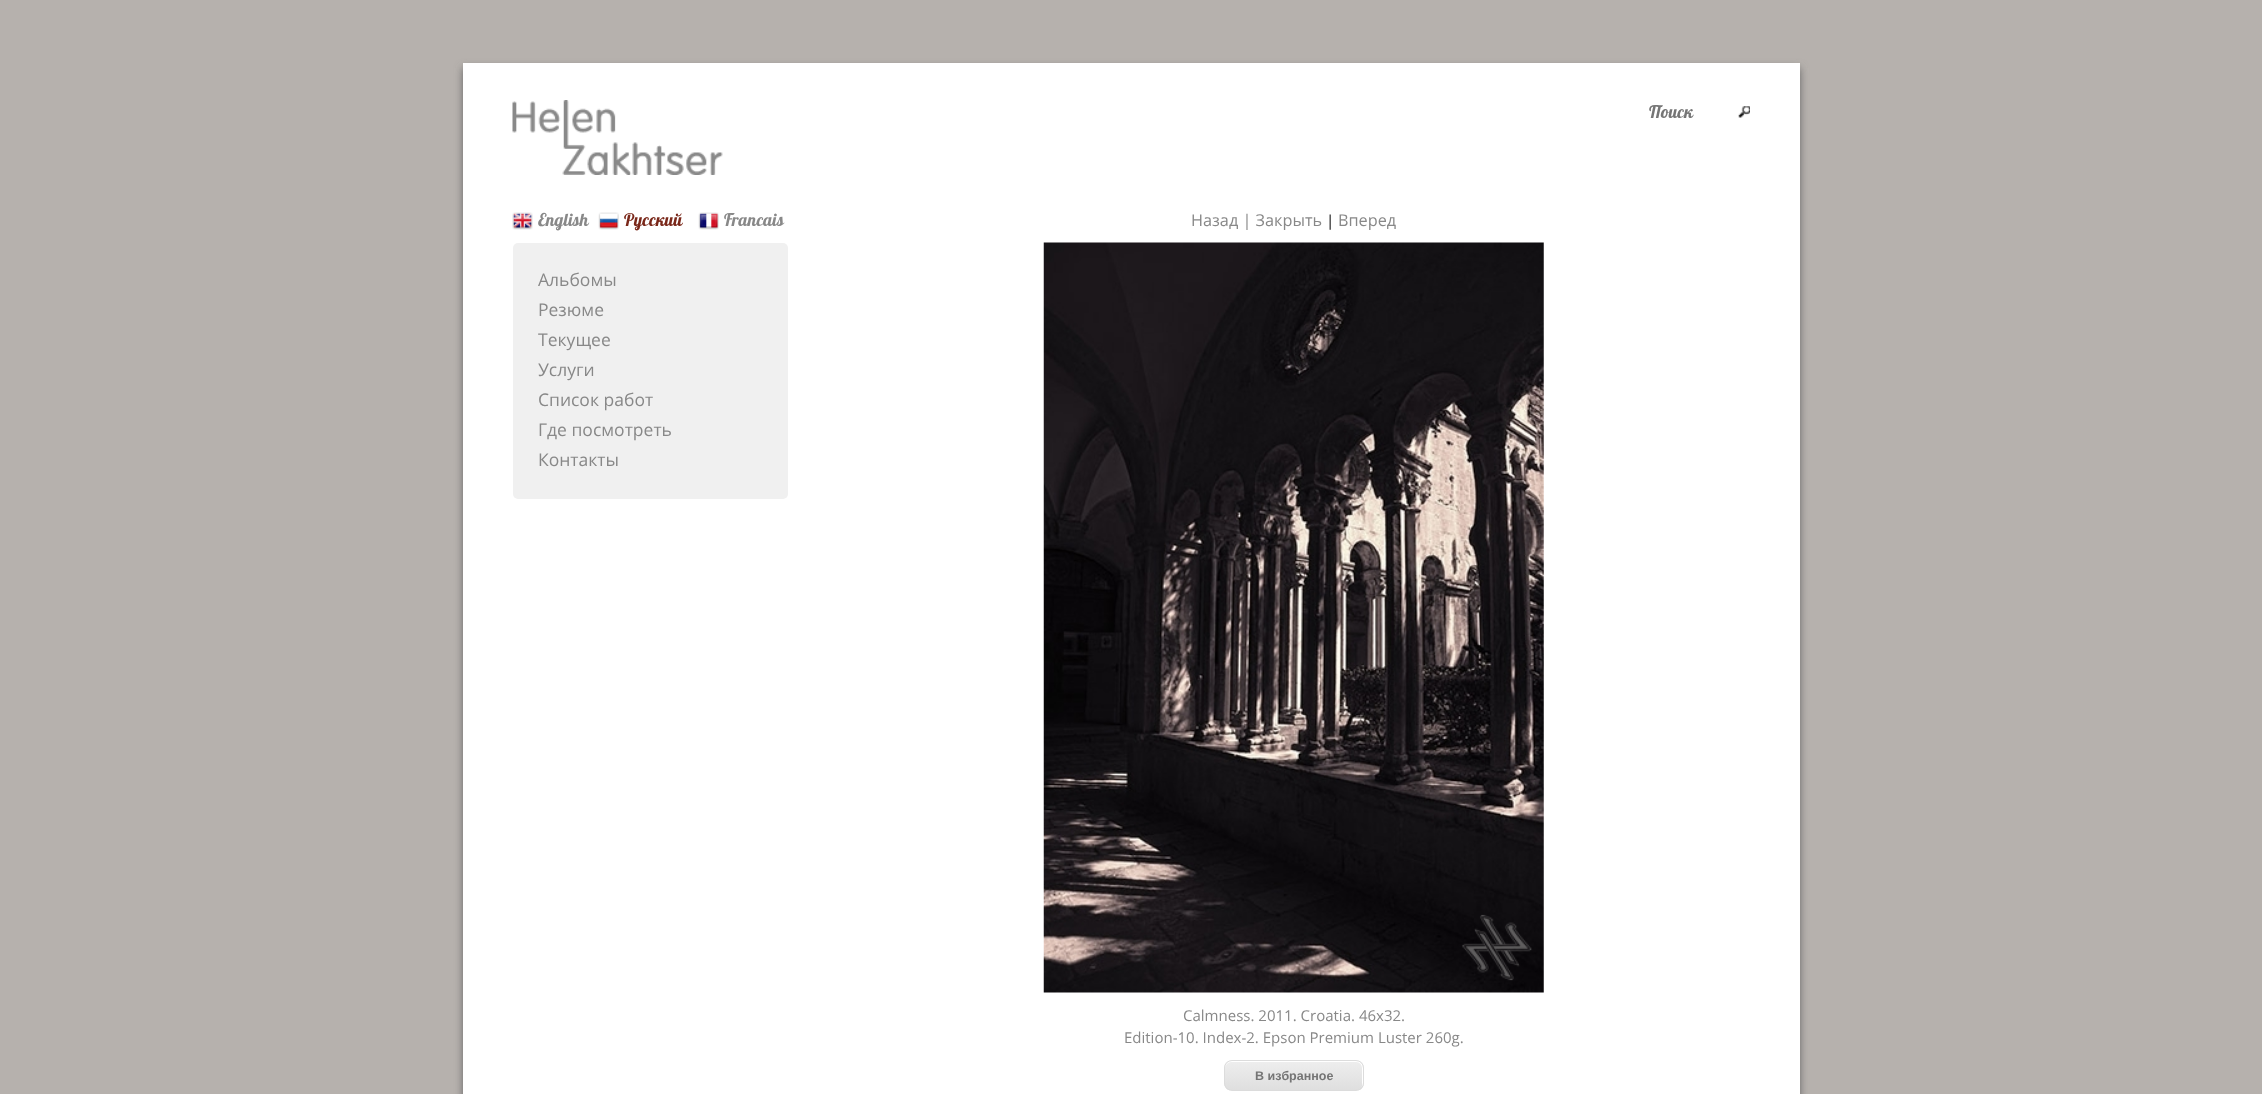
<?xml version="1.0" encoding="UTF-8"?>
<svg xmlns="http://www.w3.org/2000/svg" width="2262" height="1094">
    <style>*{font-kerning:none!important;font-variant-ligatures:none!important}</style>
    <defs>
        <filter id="blur1" x="-50%" y="-200%" width="200%" height="500%"><feGaussianBlur stdDeviation="4.5"/></filter>
        <clipPath id="clip1"><rect x="1224" y="1060" width="140" height="31" rx="8"/></clipPath>
        <linearGradient id="g1" gradientUnits="userSpaceOnUse" x1="1225" y1="1061" x2="1225" y2="1090"><stop offset="0.05" stop-color="#EDEDED"/><stop offset="1" stop-color="#DFDFDF"/></linearGradient>
    </defs>
    <rect width="100%" height="100%" fill="#B6B1AD"/>
    <rect x="463" y="68" width="1337" height="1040" fill="#666666" filter="url(#blur1)"/>
    <rect x="463" y="63" width="1337" height="1031" fill="#FFFFFF"/>
    <image x="512" y="100" width="211" height="75" href="img_01.png"/>
    <text x="1649" y="118" font-family="'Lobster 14'" font-size="17.5" fill="#757575">Поиск</text>
    <image x="1738" y="106" width="12" height="12" href="img_02.png"/>
    <image x="512" y="212" width="21" height="18" href="img_03.png"/>
    <text x="538" y="226" font-family="'Lobster 14'" font-size="17.5" fill="#888888">English</text>
    <image x="598" y="212" width="21" height="18" href="img_04.png"/>
    <text x="624" y="226" font-family="'Lobster 14'" font-size="17.5" fill="#7A281A">Русский</text>
    <image x="698" y="212" width="21" height="18" href="img_05.png"/>
    <text x="724" y="226" font-family="'Lobster 14'" font-size="17.5" fill="#888888">Francais</text>
    <rect x="513" y="243" width="275" height="256" rx="5" fill="#F0F0F0"/>
    <text font-family="Open Sans" font-size="17.5" fill="#888888">
        <tspan x="538" y="286">Альбомы</tspan>
        <tspan x="538" y="316">Резюме</tspan>
        <tspan x="538" y="346">Текущее</tspan>
        <tspan x="538" y="376">Услуги</tspan>
        <tspan x="538" y="406">Список работ</tspan>
        <tspan x="538" y="436">Где посмотреть</tspan>
        <tspan x="538" y="466">Контакты</tspan>
    </text>
    <text x="1191" y="226" font-family="Open Sans" font-size="16.25" fill="#888888">Назад | Закрыть</text>
    <text x="1326" y="226" font-family="Open Sans" font-size="15" fill="#000000">|</text>
    <text x="1338" y="226" font-family="Open Sans" font-size="16.25" fill="#888888">Вперед</text>
    <image x="1043" y="242" width="501" height="751" href="img_06.png"/>
    <text x="1183" y="1021" font-family="Open Sans" font-size="15" fill="#888888">Calmness. 2011. Croatia. 46x32.</text>
    <text x="1124" y="1043" font-family="Open Sans" font-size="15" fill="#888888">Edition-10. Index-2. Epson Premium Luster 260g.</text>
    <g clip-path="url(#clip1)">
        <rect x="1224" y="1061" width="140" height="29" fill="url(#g1)"/>
    </g>
    <path d="M 1231 1062 H 1356 C 1360 1062 1362 1065 1362 1069 V 1085 C 1362 1086 1362 1087 1361 1088 C 1362 1087 1363 1086 1363 1084 V 1067 C 1363 1064 1360 1061 1357 1061 H 1231 C 1228 1061 1225 1064 1225 1067 V 1069 C 1225 1065 1228 1062 1231 1062 Z" fill="#FFFFFF"/>
    <rect x="1224.5" y="1060.5" width="139" height="30" rx="7.5" fill="none" stroke="#DCDCDC"/>
    <text x="1255" y="1080" font-family="Liberation Sans" font-size="12.5" font-weight="700" fill="#757575">В избранное</text>
</svg>
